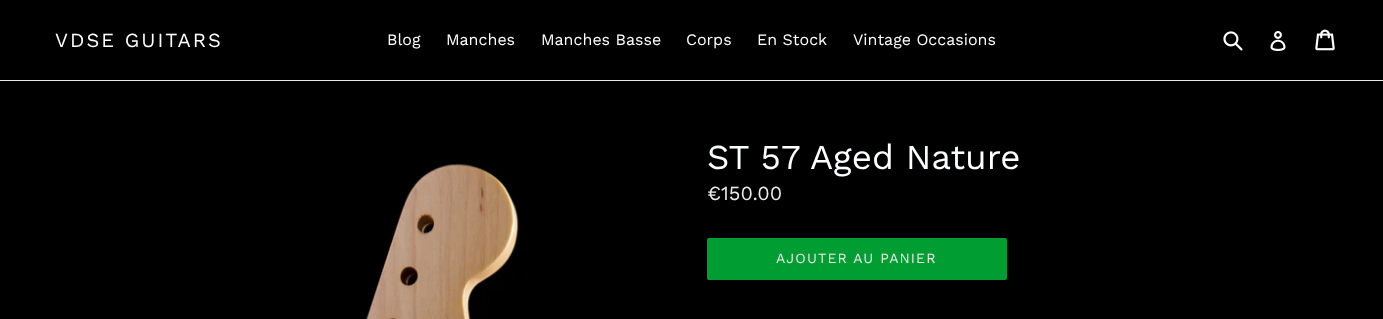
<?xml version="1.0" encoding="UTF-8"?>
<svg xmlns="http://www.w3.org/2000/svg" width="1383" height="319">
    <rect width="100%" height="100%" fill="#000000"/>
    <rect x="0" y="80" width="1383" height="1" fill="#E8E9EB"/>
    <text x="55" y="47" font-family="Work Sans" font-size="20" letter-spacing="2" fill="#FDFEFF">VDSE GUITARS</text>
    <text x="387" y="45" font-family="Work Sans" font-size="16" fill="#FDFEFF">Blog</text>
    <text x="446" y="45" font-family="Work Sans" font-size="16" fill="#FDFEFF">Manches</text>
    <text x="541" y="45" font-family="Work Sans" font-size="16" fill="#FDFEFF">Manches Basse</text>
    <text x="686" y="45" font-family="Work Sans" font-size="16" fill="#FDFEFF">Corps</text>
    <text x="757" y="45" font-family="Work Sans" font-size="16" fill="#FDFEFF">En Stock</text>
    <text x="853" y="45" font-family="Work Sans" font-size="16" fill="#FDFEFF">Vintage Occasions</text>
    <image x="1223" y="31" width="20" height="20" href="img_01.png"/>
    <image x="1270" y="31" width="16" height="20" href="img_02.png"/>
    <image x="1315" y="29" width="20" height="22" href="img_03.png"/>
    <image x="366" y="163" width="153" height="156" href="img_04.png"/>
    <text x="707" y="169" font-family="Work Sans" font-size="35" fill="#FDFEFF">ST 57 Aged Nature</text>
    <text x="707" y="200" font-family="Work Sans" font-size="20" fill="#EAEAEA">€150.00</text>
    <rect x="707" y="238" width="300" height="42" rx="2" fill="#009E32"/>
    <text x="776" y="263" font-family="Work Sans" font-size="14" letter-spacing="1.1" fill="#EAEAEA">AJOUTER AU PANIER</text>
</svg>
